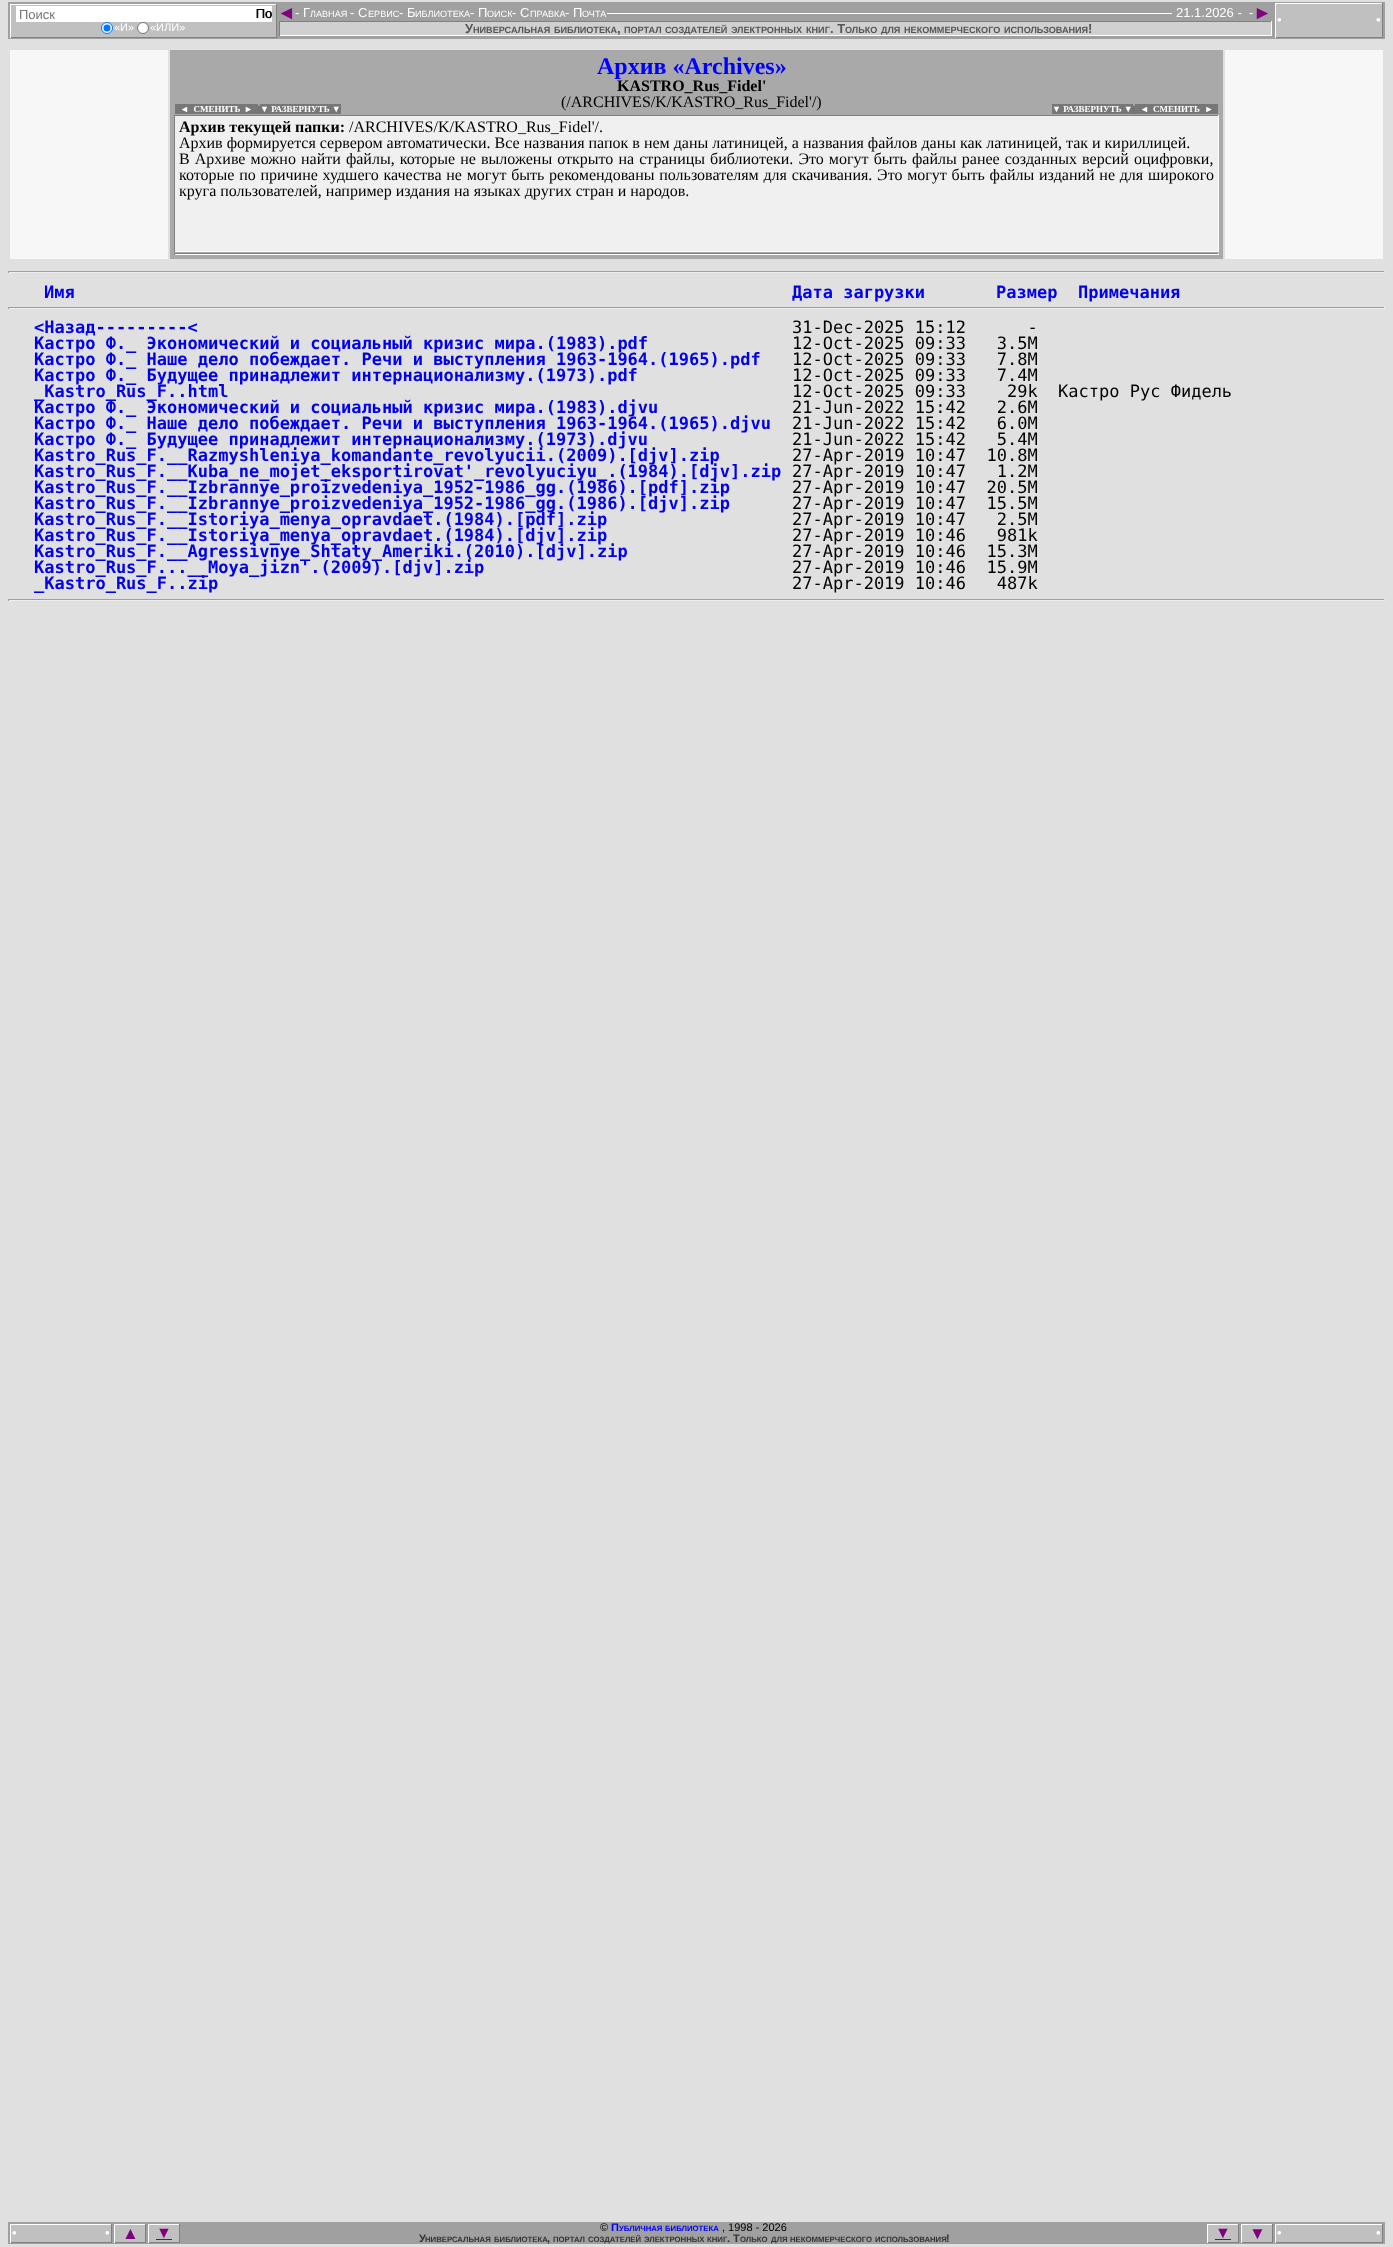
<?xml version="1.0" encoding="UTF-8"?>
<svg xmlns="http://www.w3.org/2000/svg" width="1393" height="2247">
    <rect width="100%" height="100%" fill="#E0E0E0"/>
    <rect x="8" y="2" width="1377" height="37" fill="#A0A0A0"/>
    <rect x="11" y="5" width="265" height="32" fill="#C0C0C0"/>
    <rect x="10" y="4" width="267" height="1" fill="#FFFFFF"/>
    <rect x="276" y="4" width="1" height="34" fill="#808080"/>
    <rect x="10" y="37" width="267" height="1" fill="#808080"/>
    <rect x="10" y="4" width="1" height="34" fill="#FFFFFF"/>
    <rect x="16" y="6" width="256" height="16" fill="#FFFFFF"/>
    <text x="19" y="19" font-family="Liberation Sans" font-size="13" fill="#757575">Поиск</text>
    <image x="256" y="9" width="16" height="9" href="img_01.png"/>
    <text x="256" y="18" font-family="Liberation Sans" font-size="13" fill="#000000">По</text>
    <circle cx="107" cy="28" r="5.5" fill="#FFFFFF" stroke="#0075FF"/>
    <circle cx="107" cy="28" r="3.5" fill="#0075FF"/>
    <text x="114" y="31" font-family="Liberation Sans" font-size="11" fill="#FFFFFF">«И»</text>
    <circle cx="143" cy="28" r="5.5" fill="#FFFFFF" stroke="#767676"/>
    <text x="150" y="31" font-family="Liberation Sans" font-size="11" fill="#FFFFFF">«ИЛИ»</text>
    <text x="277" y="19" font-family="Liberation Sans" font-size="19" fill="#800080">◄</text>
    <text x="295" y="17" font-family="Liberation Sans" font-size="13" fill="#FFFFFF">- Г</text>
    <text x="310" y="17" font-family="Liberation Sans" font-size="9.1" fill="#FFFFFF">ЛАВНАЯ</text>
    <text x="350" y="17" font-family="Liberation Sans" font-size="13" fill="#FFFFFF">- С</text>
    <text x="368" y="17" font-family="Liberation Sans" font-size="9.1" fill="#FFFFFF">ЕРВИС</text>
    <text x="399" y="17" font-family="Liberation Sans" font-size="13" fill="#FFFFFF">- Б</text>
    <text x="415" y="17" font-family="Liberation Sans" font-size="9.1" fill="#FFFFFF">ИБЛИОТЕКА</text>
    <rect x="470" y="16" width="1" height="3" fill="#A0A0A0"/>
    <text x="470" y="17" font-family="Liberation Sans" font-size="13" fill="#FFFFFF">- П</text>
    <text x="487" y="17" font-family="Liberation Sans" font-size="9.1" fill="#FFFFFF">ОИСК</text>
    <rect x="512" y="16" width="1" height="3" fill="#A0A0A0"/>
    <text x="512" y="17" font-family="Liberation Sans" font-size="13" fill="#FFFFFF">- С</text>
    <text x="530" y="17" font-family="Liberation Sans" font-size="9.1" fill="#FFFFFF">ПРАВКА</text>
    <text x="565" y="17" font-family="Liberation Sans" font-size="13" fill="#FFFFFF">- П</text>
    <rect x="606" y="13" width="566" height="1" fill="#FFFFFF"/>
    <rect x="606" y="12" width="1" height="2" fill="#A0A0A0"/>
    <text x="582" y="17" font-family="Liberation Sans" font-size="9.1" fill="#FFFFFF">ОЧТА</text>
    <text x="1176" y="17" font-family="Liberation Sans" font-size="13" fill="#FFFFFF">21.1.2026 -</text>
    <text x="1249" y="17" font-family="Liberation Sans" font-size="13" fill="#FFFFFF">-</text>
    <text x="1253" y="19" font-family="Liberation Sans" font-size="19" fill="#800080">►</text>
    <rect x="280" y="22" width="991" height="13" fill="#D0D0D0"/>
    <rect x="279" y="21" width="993" height="1" fill="#808080"/>
    <rect x="1271" y="21" width="1" height="15" fill="#FFFFFF"/>
    <rect x="279" y="35" width="993" height="1" fill="#FFFFFF"/>
    <rect x="279" y="21" width="1" height="15" fill="#808080"/>
    <text x="465" y="33" font-family="Liberation Sans" font-size="13" font-weight="700" fill="#555555">У</text>
    <text x="473" y="33" font-family="Liberation Sans" font-size="9.1" font-weight="700" fill="#555555">НИВЕРСАЛЬНАЯ</text>
    <text x="554" y="33" font-family="Liberation Sans" font-size="9.1" font-weight="700" fill="#555555">БИБЛИОТЕКА</text>
    <text x="617" y="33" font-family="Liberation Sans" font-size="13" font-weight="700" fill="#555555">,</text>
    <text x="624" y="33" font-family="Liberation Sans" font-size="9.1" font-weight="700" fill="#555555">ПОРТАЛ</text>
    <text x="665" y="33" font-family="Liberation Sans" font-size="9.1" font-weight="700" fill="#555555">СОЗДАТЕЛЕЙ</text>
    <text x="731" y="33" font-family="Liberation Sans" font-size="9.1" font-weight="700" fill="#555555">ЭЛЕКТРОННЫХ</text>
    <text x="806" y="33" font-family="Liberation Sans" font-size="9.1" font-weight="700" fill="#555555">КНИГ</text>
    <text x="830" y="33" font-family="Liberation Sans" font-size="13" font-weight="700" fill="#555555">. Т</text>
    <text x="845" y="33" font-family="Liberation Sans" font-size="9.1" font-weight="700" fill="#555555">ОЛЬКО</text>
    <text x="881" y="33" font-family="Liberation Sans" font-size="9.1" font-weight="700" fill="#555555">ДЛЯ</text>
    <text x="904" y="33" font-family="Liberation Sans" font-size="9.1" font-weight="700" fill="#555555">НЕКОММЕРЧЕСКОГО</text>
    <text x="1004" y="33" font-family="Liberation Sans" font-size="9.1" font-weight="700" fill="#555555">ИСПОЛЬЗОВАНИЯ</text>
    <text x="1088" y="33" font-family="Liberation Sans" font-size="13" font-weight="700" fill="#555555">!</text>
    <rect x="1276" y="4" width="106" height="33" fill="#C0C0C0"/>
    <rect x="1275" y="3" width="108" height="1" fill="#FFFFFF"/>
    <rect x="1382" y="3" width="1" height="35" fill="#808080"/>
    <rect x="1275" y="37" width="108" height="1" fill="#808080"/>
    <rect x="1275" y="3" width="1" height="35" fill="#FFFFFF"/>
    <text x="1277" y="24" font-family="Liberation Sans" font-size="13" fill="#FFFFFF">•</text>
    <text x="1376" y="24" font-family="Liberation Sans" font-size="13" fill="#FFFFFF">•</text>
    <rect x="10" y="50" width="158" height="209" fill="#F7F7F7"/>
    <rect x="170" y="50" width="1053" height="209" fill="#A9A9A9"/>
    <text x="597" y="74" font-family="Liberation Serif" font-size="24" font-weight="700" fill="#0000FF">Архив «Archives»</text>
    <text x="617" y="91" font-family="Liberation Serif" font-size="16" font-weight="700" fill="#000000">KASTRO_Rus_Fidel'</text>
    <rect x="175" y="104" width="83" height="10" fill="#777777"/>
    <text x="180" y="112" font-family="Liberation Serif" font-size="9" font-weight="700" fill="#FFFFFF" xml:space="preserve">◄  СМЕНИТЬ</text>
    <text x="244" y="112" font-family="Liberation Serif" font-size="9" font-weight="700" fill="#FFFFFF">►</text>
    <text x="258" y="112" font-family="Liberation Serif" font-size="9" font-weight="700" fill="#000000">|</text>
    <rect x="260" y="104" width="81" height="10" fill="#777777"/>
    <text x="260" y="112" font-family="Liberation Serif" font-size="9" font-weight="700" fill="#FFFFFF">▼ РАЗВЕРНУТЬ ▼</text>
    <text x="561" y="107" font-family="Liberation Serif" font-size="16" fill="#000000">(/ARCHIVES/K/KASTRO_Rus_Fidel'/)</text>
    <rect x="1052" y="104" width="81" height="10" fill="#777777"/>
    <text x="1052" y="112" font-family="Liberation Serif" font-size="9" font-weight="700" fill="#FFFFFF">▼ РАЗВЕРНУТЬ ▼</text>
    <text x="1133" y="112" font-family="Liberation Serif" font-size="9" font-weight="700" fill="#000000">|</text>
    <rect x="1135" y="104" width="83" height="10" fill="#777777"/>
    <text x="1140" y="112" font-family="Liberation Serif" font-size="9" font-weight="700" fill="#FFFFFF">◄</text>
    <text x="1153" y="112" font-family="Liberation Serif" font-size="9" font-weight="700" fill="#FFFFFF" xml:space="preserve">СМЕНИТЬ  ►</text>
    <rect x="175" y="116" width="1043" height="135" fill="#F0F0F0"/>
    <rect x="174" y="115" width="1045" height="1" fill="#808080"/>
    <rect x="1218" y="115" width="1" height="137" fill="#FFFFFF"/>
    <rect x="174" y="251" width="1045" height="1" fill="#FFFFFF"/>
    <rect x="174" y="115" width="1" height="137" fill="#808080"/>
    <text x="179" y="132" font-family="Liberation Serif" font-size="16" font-weight="700" fill="#000000">Архив текущей папки:</text>
    <text x="349" y="132" font-family="Liberation Serif" font-size="16" fill="#000000">/ARCHIVES/K/KASTRO_Rus_Fidel'/.</text>
    <text font-family="Liberation Serif" font-size="16" fill="#000000">
        <tspan x="179" y="148">Архив формируется сервером автоматически. Все названия папок в нем даны латиницей, а названия файлов даны как латиницей, так и кириллицей.</tspan>
        <tspan x="179" y="164" word-spacing="1.1">В Архиве можно найти файлы, которые не выложены открыто на страницы библиотеки. Это могут быть файлы ранее созданных версий оцифровки,</tspan>
        <tspan x="179" y="180" word-spacing="0.75">которые по причине худшего качества не могут быть рекомендованы пользователям для скачивания. Это могут быть файлы изданий не для широкого</tspan>
        <tspan x="179" y="196">круга пользователей, например издания на языках других стран и народов.</tspan>
    </text>
    <rect x="174" y="253" width="1045" height="1" fill="#808080"/>
    <rect x="1218" y="253" width="1" height="2" fill="#FFFFFF"/>
    <rect x="174" y="254" width="1045" height="1" fill="#FFFFFF"/>
    <rect x="174" y="253" width="1" height="2" fill="#808080"/>
    <rect x="1225" y="50" width="158" height="209" fill="#F7F7F7"/>
    <rect x="8" y="271" width="1377" height="1" fill="#9F9F9F"/>
    <rect x="1384" y="271" width="1" height="2" fill="#EEEEEE"/>
    <rect x="8" y="272" width="1377" height="1" fill="#EEEEEE"/>
    <rect x="8" y="271" width="1" height="2" fill="#9F9F9F"/>
    <text x="44" y="298" font-family="DejaVu Sans Mono" font-size="17" font-weight="700" fill="#0000EE">Имя</text>
    <text x="792" y="298" font-family="DejaVu Sans Mono" font-size="17" font-weight="700" fill="#0000EE">Дата загрузки</text>
    <text x="996" y="298" font-family="DejaVu Sans Mono" font-size="17" font-weight="700" fill="#0000EE">Размер</text>
    <text x="1078" y="298" font-family="DejaVu Sans Mono" font-size="17" font-weight="700" fill="#0000EE">Примечания</text>
    <rect x="8" y="307" width="1377" height="1" fill="#9F9F9F"/>
    <rect x="1384" y="307" width="1" height="2" fill="#EEEEEE"/>
    <rect x="8" y="308" width="1377" height="1" fill="#EEEEEE"/>
    <rect x="8" y="307" width="1" height="2" fill="#9F9F9F"/>
    <text x="34" y="333" font-family="DejaVu Sans Mono" font-size="17" font-weight="700" fill="#0000EE">&lt;Назад---------&lt;</text>
    <text x="792" y="333" font-family="DejaVu Sans Mono" font-size="17" fill="#000000" xml:space="preserve">31-Dec-2025 15:12      -</text>
    <text x="34" y="349" font-family="DejaVu Sans Mono" font-size="17" font-weight="700" fill="#0000EE">Кастро Ф._ Экономический и социальный кризис мира.(1983).pdf</text>
    <text x="792" y="349" font-family="DejaVu Sans Mono" font-size="17" fill="#000000" xml:space="preserve">12-Oct-2025 09:33   3.5M</text>
    <text x="34" y="365" font-family="DejaVu Sans Mono" font-size="17" font-weight="700" fill="#0000EE">Кастро Ф._ Наше дело побеждает. Речи и выступления 1963-1964.(1965).pdf</text>
    <text x="792" y="365" font-family="DejaVu Sans Mono" font-size="17" fill="#000000" xml:space="preserve">12-Oct-2025 09:33   7.8M</text>
    <text x="34" y="381" font-family="DejaVu Sans Mono" font-size="17" font-weight="700" fill="#0000EE">Кастро Ф._ Будущее принадлежит интернационализму.(1973).pdf</text>
    <text x="792" y="381" font-family="DejaVu Sans Mono" font-size="17" fill="#000000" xml:space="preserve">12-Oct-2025 09:33   7.4M</text>
    <text x="34" y="397" font-family="DejaVu Sans Mono" font-size="17" font-weight="700" fill="#0000EE">_Kastro_Rus_F..html</text>
    <text x="792" y="397" font-family="DejaVu Sans Mono" font-size="17" fill="#000000" xml:space="preserve">12-Oct-2025 09:33    29k  Кастро Рус Фидель</text>
    <text x="34" y="413" font-family="DejaVu Sans Mono" font-size="17" font-weight="700" fill="#0000EE">Кастро Ф._ Экономический и социальный кризис мира.(1983).djvu</text>
    <text x="792" y="413" font-family="DejaVu Sans Mono" font-size="17" fill="#000000" xml:space="preserve">21-Jun-2022 15:42   2.6M</text>
    <text x="34" y="429" font-family="DejaVu Sans Mono" font-size="17" font-weight="700" fill="#0000EE">Кастро Ф._ Наше дело побеждает. Речи и выступления 1963-1964.(1965).djvu</text>
    <text x="792" y="429" font-family="DejaVu Sans Mono" font-size="17" fill="#000000" xml:space="preserve">21-Jun-2022 15:42   6.0M</text>
    <text x="34" y="445" font-family="DejaVu Sans Mono" font-size="17" font-weight="700" fill="#0000EE">Кастро Ф._ Будущее принадлежит интернационализму.(1973).djvu</text>
    <text x="792" y="445" font-family="DejaVu Sans Mono" font-size="17" fill="#000000" xml:space="preserve">21-Jun-2022 15:42   5.4M</text>
    <text x="34" y="461" font-family="DejaVu Sans Mono" font-size="17" font-weight="700" fill="#0000EE">Kastro_Rus_F.__Razmyshleniya_komandante_revolyucii.(2009).[djv].zip</text>
    <text x="792" y="461" font-family="DejaVu Sans Mono" font-size="17" fill="#000000" xml:space="preserve">27-Apr-2019 10:47  10.8M</text>
    <text x="34" y="477" font-family="DejaVu Sans Mono" font-size="17" font-weight="700" fill="#0000EE">Kastro_Rus_F.__Kuba_ne_mojet_eksportirovat'_revolyuciyu_.(1984).[djv].zip</text>
    <text x="792" y="477" font-family="DejaVu Sans Mono" font-size="17" fill="#000000" xml:space="preserve">27-Apr-2019 10:47   1.2M</text>
    <text x="34" y="493" font-family="DejaVu Sans Mono" font-size="17" font-weight="700" fill="#0000EE">Kastro_Rus_F.__Izbrannye_proizvedeniya_1952-1986_gg.(1986).[pdf].zip</text>
    <text x="792" y="493" font-family="DejaVu Sans Mono" font-size="17" fill="#000000" xml:space="preserve">27-Apr-2019 10:47  20.5M</text>
    <text x="34" y="509" font-family="DejaVu Sans Mono" font-size="17" font-weight="700" fill="#0000EE">Kastro_Rus_F.__Izbrannye_proizvedeniya_1952-1986_gg.(1986).[djv].zip</text>
    <text x="792" y="509" font-family="DejaVu Sans Mono" font-size="17" fill="#000000" xml:space="preserve">27-Apr-2019 10:47  15.5M</text>
    <text x="34" y="525" font-family="DejaVu Sans Mono" font-size="17" font-weight="700" fill="#0000EE">Kastro_Rus_F.__Istoriya_menya_opravdaet.(1984).[pdf].zip</text>
    <text x="792" y="525" font-family="DejaVu Sans Mono" font-size="17" fill="#000000" xml:space="preserve">27-Apr-2019 10:47   2.5M</text>
    <text x="34" y="541" font-family="DejaVu Sans Mono" font-size="17" font-weight="700" fill="#0000EE">Kastro_Rus_F.__Istoriya_menya_opravdaet.(1984).[djv].zip</text>
    <text x="792" y="541" font-family="DejaVu Sans Mono" font-size="17" fill="#000000" xml:space="preserve">27-Apr-2019 10:46   981k</text>
    <text x="34" y="557" font-family="DejaVu Sans Mono" font-size="17" font-weight="700" fill="#0000EE">Kastro_Rus_F.__Agressivnye_Shtaty_Ameriki.(2010).[djv].zip</text>
    <text x="792" y="557" font-family="DejaVu Sans Mono" font-size="17" fill="#000000" xml:space="preserve">27-Apr-2019 10:46  15.3M</text>
    <text x="34" y="573" font-family="DejaVu Sans Mono" font-size="17" font-weight="700" fill="#0000EE">Kastro_Rus_F...__Moya_jizn'.(2009).[djv].zip</text>
    <text x="792" y="573" font-family="DejaVu Sans Mono" font-size="17" fill="#000000" xml:space="preserve">27-Apr-2019 10:46  15.9M</text>
    <text x="34" y="589" font-family="DejaVu Sans Mono" font-size="17" font-weight="700" fill="#0000EE">_Kastro_Rus_F..zip</text>
    <text x="792" y="589" font-family="DejaVu Sans Mono" font-size="17" fill="#000000" xml:space="preserve">27-Apr-2019 10:46   487k</text>
    <rect x="8" y="599" width="1377" height="1" fill="#9F9F9F"/>
    <rect x="1384" y="599" width="1" height="2" fill="#EEEEEE"/>
    <rect x="8" y="600" width="1377" height="1" fill="#EEEEEE"/>
    <rect x="8" y="599" width="1" height="2" fill="#9F9F9F"/>
    <rect x="8" y="2222" width="1377" height="22" fill="#A0A0A0"/>
    <rect x="11" y="2225" width="100" height="17" fill="#C0C0C0"/>
    <rect x="10" y="2224" width="102" height="1" fill="#FFFFFF"/>
    <rect x="111" y="2224" width="1" height="19" fill="#808080"/>
    <rect x="10" y="2242" width="102" height="1" fill="#808080"/>
    <rect x="10" y="2224" width="1" height="19" fill="#FFFFFF"/>
    <text x="12" y="2237" font-family="Liberation Sans" font-size="13" fill="#FFFFFF">•</text>
    <text x="105" y="2237" font-family="Liberation Sans" font-size="13" fill="#FFFFFF">•</text>
    <rect x="115" y="2225" width="30" height="17" fill="#C0C0C0"/>
    <rect x="114" y="2224" width="32" height="1" fill="#FFFFFF"/>
    <rect x="145" y="2224" width="1" height="19" fill="#808080"/>
    <rect x="114" y="2242" width="32" height="1" fill="#808080"/>
    <rect x="114" y="2224" width="1" height="19" fill="#FFFFFF"/>
    <text x="122" y="2239" font-family="Liberation Sans" font-size="17" fill="#800080">▲</text>
    <rect x="149" y="2225" width="30" height="17" fill="#C0C0C0"/>
    <rect x="148" y="2224" width="32" height="1" fill="#FFFFFF"/>
    <rect x="179" y="2224" width="1" height="19" fill="#808080"/>
    <rect x="148" y="2242" width="32" height="1" fill="#808080"/>
    <rect x="148" y="2224" width="1" height="19" fill="#FFFFFF"/>
    <text x="156" y="2238" font-family="Liberation Sans" font-size="16" fill="#800080">▼</text>
    <rect x="156" y="2239" width="16" height="1" fill="#800080"/>
    <text x="600" y="2231" font-family="Liberation Sans" font-size="11" fill="#000000">©</text>
    <text x="611" y="2231" font-family="Liberation Sans" font-size="11" font-weight="700" fill="#0000FF">П</text>
    <text x="619" y="2231" font-family="Liberation Sans" font-size="7.75" font-weight="700" fill="#0000FF">УБЛИЧНАЯ</text>
    <text x="665" y="2231" font-family="Liberation Sans" font-size="7.75" font-weight="700" fill="#0000FF">БИБЛИОТЕКА</text>
    <text x="722" y="2231" font-family="Liberation Sans" font-size="11" fill="#000000">, 1998 - 2026</text>
    <rect x="1208" y="2225" width="30" height="17" fill="#C0C0C0"/>
    <rect x="1207" y="2224" width="32" height="1" fill="#FFFFFF"/>
    <rect x="1238" y="2224" width="1" height="19" fill="#808080"/>
    <rect x="1207" y="2242" width="32" height="1" fill="#808080"/>
    <rect x="1207" y="2224" width="1" height="19" fill="#FFFFFF"/>
    <text x="1215" y="2238" font-family="Liberation Sans" font-size="16" fill="#800080">▼</text>
    <rect x="1215" y="2239" width="16" height="1" fill="#800080"/>
    <rect x="1242" y="2225" width="30" height="17" fill="#C0C0C0"/>
    <rect x="1241" y="2224" width="32" height="1" fill="#FFFFFF"/>
    <rect x="1272" y="2224" width="1" height="19" fill="#808080"/>
    <rect x="1241" y="2242" width="32" height="1" fill="#808080"/>
    <rect x="1241" y="2224" width="1" height="19" fill="#FFFFFF"/>
    <text x="1249" y="2239" font-family="Liberation Sans" font-size="17" fill="#800080">▼</text>
    <text x="419" y="2242" font-family="Liberation Sans" font-size="11" font-weight="700" fill="#333333">У</text>
    <text x="425" y="2242" font-family="Liberation Sans" font-size="7.75" font-weight="700" fill="#333333">НИВЕРСАЛЬНАЯ</text>
    <text x="494" y="2242" font-family="Liberation Sans" font-size="7.75" font-weight="700" fill="#333333">БИБЛИОТЕКА</text>
    <text x="547" y="2242" font-family="Liberation Sans" font-size="11" font-weight="700" fill="#333333">,</text>
    <text x="553" y="2242" font-family="Liberation Sans" font-size="7.75" font-weight="700" fill="#333333">ПОРТАЛ</text>
    <text x="588" y="2242" font-family="Liberation Sans" font-size="7.75" font-weight="700" fill="#333333">СОЗДАТЕЛЕЙ</text>
    <text x="644" y="2242" font-family="Liberation Sans" font-size="7.75" font-weight="700" fill="#333333">ЭЛЕКТРОННЫХ</text>
    <text x="707" y="2242" font-family="Liberation Sans" font-size="7.75" font-weight="700" fill="#333333">КНИГ</text>
    <text x="727" y="2242" font-family="Liberation Sans" font-size="11" font-weight="700" fill="#333333">. Т</text>
    <text x="740" y="2242" font-family="Liberation Sans" font-size="7.75" font-weight="700" fill="#333333">ОЛЬКО</text>
    <text x="771" y="2242" font-family="Liberation Sans" font-size="7.75" font-weight="700" fill="#333333">ДЛЯ</text>
    <text x="790" y="2242" font-family="Liberation Sans" font-size="7.75" font-weight="700" fill="#333333">НЕКОММЕРЧЕСКОГО</text>
    <text x="875" y="2242" font-family="Liberation Sans" font-size="7.75" font-weight="700" fill="#333333">ИСПОЛЬЗОВАНИЯ</text>
    <text x="946" y="2242" font-family="Liberation Sans" font-size="11" font-weight="700" fill="#333333">!</text>
    <rect x="1276" y="2225" width="106" height="17" fill="#C0C0C0"/>
    <rect x="1275" y="2224" width="108" height="1" fill="#FFFFFF"/>
    <rect x="1382" y="2224" width="1" height="19" fill="#808080"/>
    <rect x="1275" y="2242" width="108" height="1" fill="#808080"/>
    <rect x="1275" y="2224" width="1" height="19" fill="#FFFFFF"/>
    <text x="1277" y="2237" font-family="Liberation Sans" font-size="13" fill="#FFFFFF">•</text>
    <text x="1376" y="2237" font-family="Liberation Sans" font-size="13" fill="#FFFFFF">•</text>
</svg>
